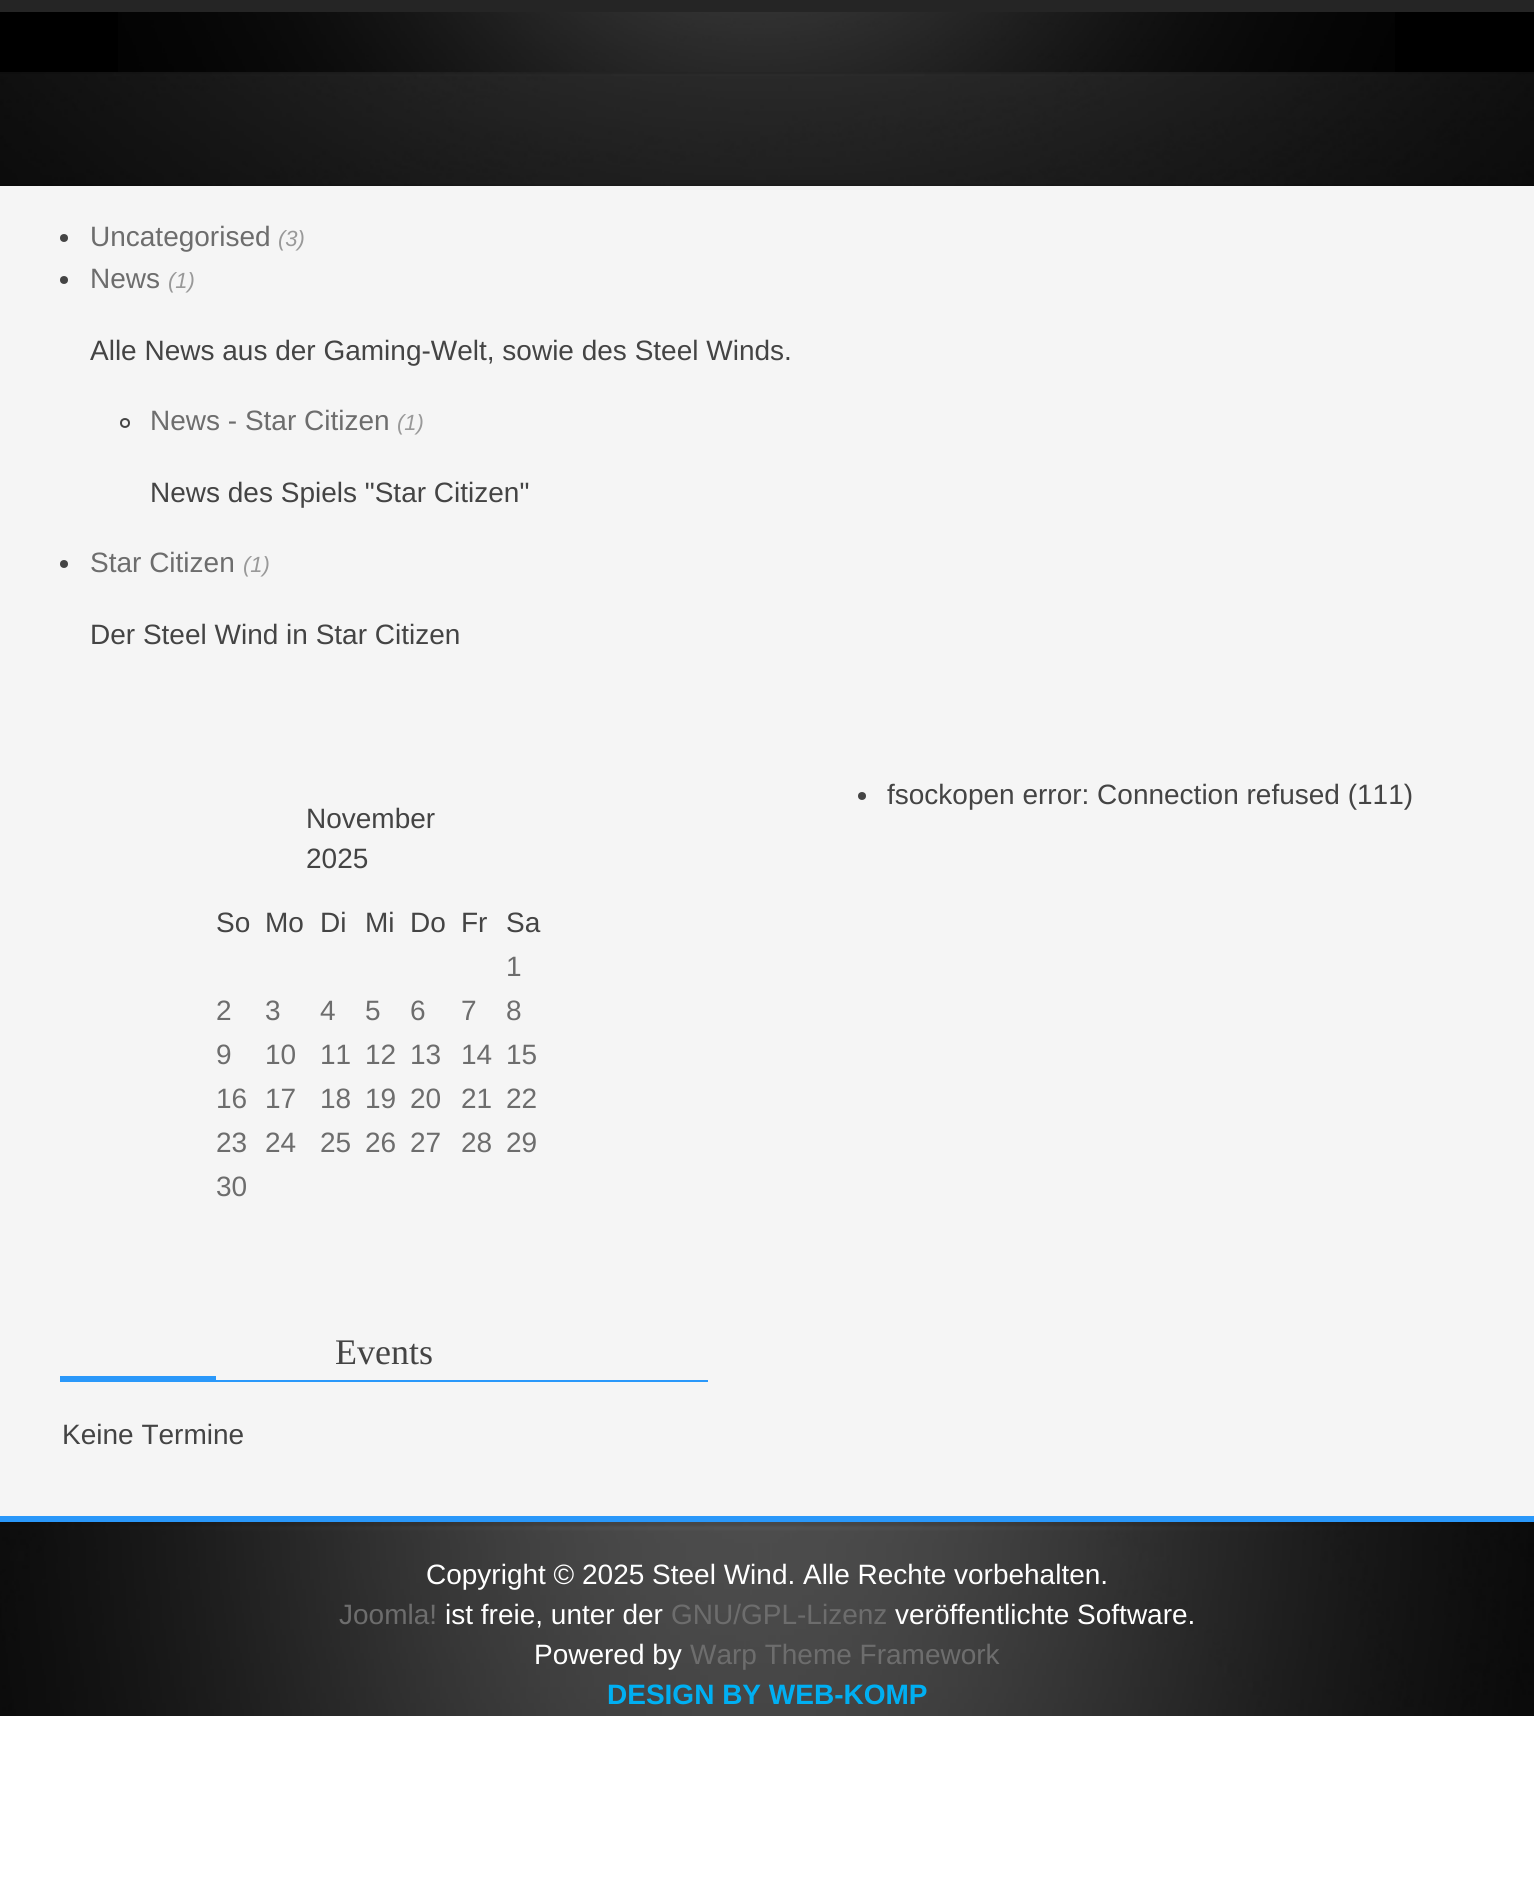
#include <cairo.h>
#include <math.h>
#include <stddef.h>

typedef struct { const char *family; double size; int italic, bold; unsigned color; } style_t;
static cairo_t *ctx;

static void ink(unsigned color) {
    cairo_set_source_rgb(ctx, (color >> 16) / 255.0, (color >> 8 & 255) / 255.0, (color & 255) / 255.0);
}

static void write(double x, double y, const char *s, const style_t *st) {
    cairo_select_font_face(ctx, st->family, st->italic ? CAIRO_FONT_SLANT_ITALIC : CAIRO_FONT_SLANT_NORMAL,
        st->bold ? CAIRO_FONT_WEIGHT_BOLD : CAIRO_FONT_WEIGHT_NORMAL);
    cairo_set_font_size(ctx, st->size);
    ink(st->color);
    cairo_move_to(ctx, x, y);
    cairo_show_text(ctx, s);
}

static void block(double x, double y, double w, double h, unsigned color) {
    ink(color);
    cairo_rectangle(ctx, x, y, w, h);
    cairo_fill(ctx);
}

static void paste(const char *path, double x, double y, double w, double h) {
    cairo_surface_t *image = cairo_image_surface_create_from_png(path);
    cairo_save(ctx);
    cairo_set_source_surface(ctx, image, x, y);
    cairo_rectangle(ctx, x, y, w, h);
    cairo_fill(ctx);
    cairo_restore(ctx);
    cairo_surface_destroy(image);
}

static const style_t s1 = {"Liberation Sans", 28, 0, 0, 0x6d6d6d};
static const style_t s2 = {"Liberation Sans", 22, 1, 0, 0x999999};
static const style_t s3 = {"Liberation Sans", 28, 0, 0, 0x444444};
static const style_t s4 = {"Liberation Serif", 36, 0, 0, 0x444444};
static const style_t s5 = {"Liberation Sans", 28, 0, 0, 0xffffff};
static const style_t s6 = {"Liberation Sans", 28, 0, 1, 0x00aff2};

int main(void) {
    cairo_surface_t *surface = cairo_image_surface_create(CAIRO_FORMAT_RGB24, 1534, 1892);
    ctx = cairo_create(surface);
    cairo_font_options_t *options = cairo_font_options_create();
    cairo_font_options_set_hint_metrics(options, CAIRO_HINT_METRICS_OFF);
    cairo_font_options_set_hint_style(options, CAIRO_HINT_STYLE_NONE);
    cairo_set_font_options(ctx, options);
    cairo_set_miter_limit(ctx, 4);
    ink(0xffffff);
    cairo_paint(ctx);
    block(0, 0, 1534, 12, 0x252525);
    block(0, 12, 1534, 174, 0x000000);
    paste("pic1.png", 118, 12, 1277, 60);
    paste("pic2.png", 0, 72, 1534, 114);
    block(0, 186, 1534, 1330, 0xf5f5f5);
    ink(0x444444);
    cairo_arc(ctx, 64, 238, 4, 0, 2 * M_PI);
    cairo_fill(ctx);
    write(90, 246, "Uncategorised", &s1);
    write(278, 246, "(3)", &s2);
    ink(0x444444);
    cairo_new_path(ctx);
    cairo_arc(ctx, 64, 280, 4, 0, 2 * M_PI);
    cairo_fill(ctx);
    write(90, 288, "News", &s1);
    write(168, 288, "(1)", &s2);
    write(90, 360, "Alle News aus der Gaming-Welt, sowie des Steel Winds.", &s3);
    cairo_new_path(ctx);
    cairo_arc(ctx, 125, 423, 4, 0, 2 * M_PI);
    cairo_stroke(ctx);
    write(150, 430, "News - Star Citizen", &s1);
    write(397, 430, "(1)", &s2);
    write(150, 502, "News des Spiels \"Star Citizen\"", &s3);
    cairo_new_path(ctx);
    cairo_arc(ctx, 64, 564, 4, 0, 2 * M_PI);
    cairo_fill(ctx);
    write(90, 572, "Star Citizen", &s1);
    write(243, 572, "(1)", &s2);
    write(90, 644, "Der Steel Wind in Star Citizen", &s3);
    cairo_new_path(ctx);
    cairo_arc(ctx, 862, 796, 4, 0, 2 * M_PI);
    cairo_fill(ctx);
    write(887, 804, "fsockopen error: Connection refused (111)", &s3);
    write(306, 828, "November", &s3);
    write(306, 868, "2025", &s3);
    write(216, 932, "So", &s3);
    write(265, 932, "Mo", &s3);
    write(320, 932, "Di", &s3);
    write(365, 932, "Mi", &s3);
    write(410, 932, "Do", &s3);
    write(461, 932, "Fr", &s3);
    write(506, 932, "Sa", &s3);
    write(506, 976, "1", &s1);
    write(216, 1020, "2", &s1);
    write(265, 1020, "3", &s1);
    write(320, 1020, "4", &s1);
    write(365, 1020, "5", &s1);
    write(410, 1020, "6", &s1);
    write(461, 1020, "7", &s1);
    write(506, 1020, "8", &s1);
    write(216, 1064, "9", &s1);
    write(265, 1064, "10", &s1);
    write(320, 1064, "11", &s1);
    write(365, 1064, "12", &s1);
    write(410, 1064, "13", &s1);
    write(461, 1064, "14", &s1);
    write(506, 1064, "15", &s1);
    write(216, 1108, "16", &s1);
    write(265, 1108, "17", &s1);
    write(320, 1108, "18", &s1);
    write(365, 1108, "19", &s1);
    write(410, 1108, "20", &s1);
    write(461, 1108, "21", &s1);
    write(506, 1108, "22", &s1);
    write(216, 1152, "23", &s1);
    write(265, 1152, "24", &s1);
    write(320, 1152, "25", &s1);
    write(365, 1152, "26", &s1);
    write(410, 1152, "27", &s1);
    write(461, 1152, "28", &s1);
    write(506, 1152, "29", &s1);
    write(216, 1196, "30", &s1);
    block(60, 1380, 648, 2, 0x2a98fa);
    write(335, 1364, "Events", &s4);
    block(60, 1376, 156, 4, 0x2a98fa);
    write(62, 1444, "Keine Termine", &s3);
    block(0, 1516, 1534, 6, 0x2a98fa);
    block(0, 1522, 1534, 194, 0x000000);
    paste("pic3.png", 0, 1522, 1534, 194);
    write(426, 1584, "Copyright © 2025 Steel Wind. Alle Rechte vorbehalten.", &s5);
    write(339, 1624, "Joomla!", &s1);
    write(445, 1624, "ist freie, unter der", &s5);
    write(671, 1624, "GNU/GPL-Lizenz", &s1);
    write(895, 1624, "veröffentlichte Software.", &s5);
    write(534, 1664, "Powered by", &s5);
    write(690, 1664, "Warp Theme Framework", &s1);
    write(607, 1704, "DESIGN BY WEB-KOMP", &s6);
    cairo_surface_write_to_png(surface, "screenshot.png");
    cairo_font_options_destroy(options);
    cairo_destroy(ctx);
    cairo_surface_destroy(surface);
    return 0;
}
